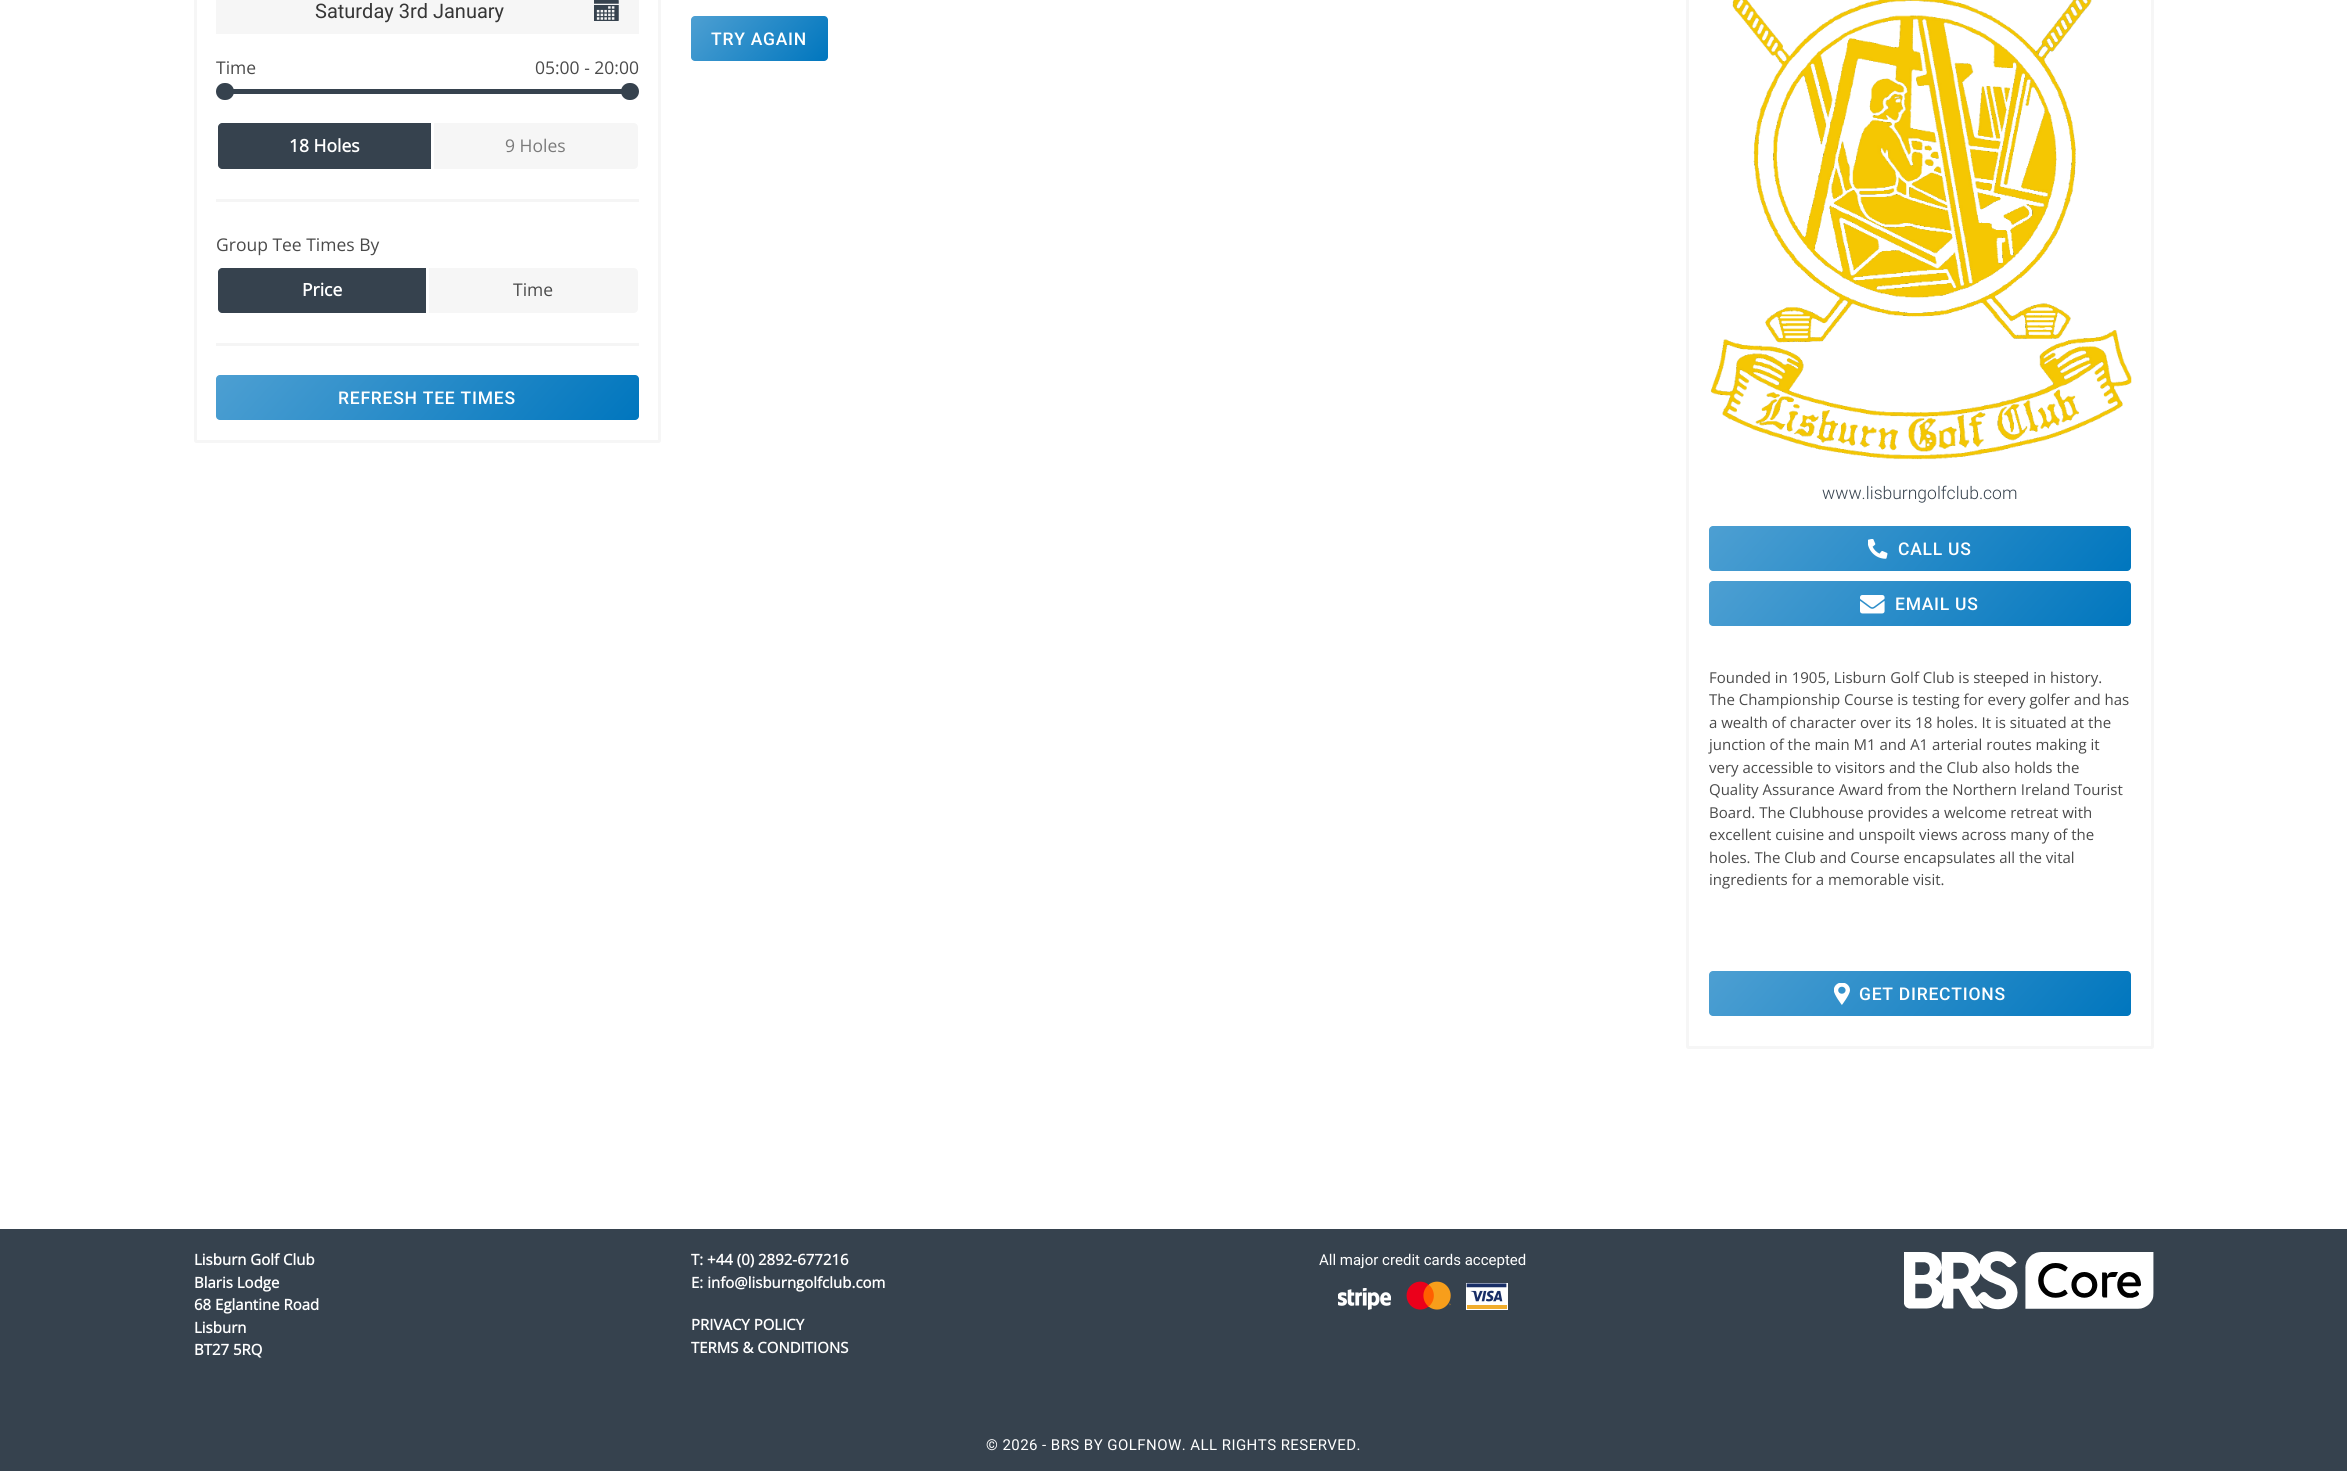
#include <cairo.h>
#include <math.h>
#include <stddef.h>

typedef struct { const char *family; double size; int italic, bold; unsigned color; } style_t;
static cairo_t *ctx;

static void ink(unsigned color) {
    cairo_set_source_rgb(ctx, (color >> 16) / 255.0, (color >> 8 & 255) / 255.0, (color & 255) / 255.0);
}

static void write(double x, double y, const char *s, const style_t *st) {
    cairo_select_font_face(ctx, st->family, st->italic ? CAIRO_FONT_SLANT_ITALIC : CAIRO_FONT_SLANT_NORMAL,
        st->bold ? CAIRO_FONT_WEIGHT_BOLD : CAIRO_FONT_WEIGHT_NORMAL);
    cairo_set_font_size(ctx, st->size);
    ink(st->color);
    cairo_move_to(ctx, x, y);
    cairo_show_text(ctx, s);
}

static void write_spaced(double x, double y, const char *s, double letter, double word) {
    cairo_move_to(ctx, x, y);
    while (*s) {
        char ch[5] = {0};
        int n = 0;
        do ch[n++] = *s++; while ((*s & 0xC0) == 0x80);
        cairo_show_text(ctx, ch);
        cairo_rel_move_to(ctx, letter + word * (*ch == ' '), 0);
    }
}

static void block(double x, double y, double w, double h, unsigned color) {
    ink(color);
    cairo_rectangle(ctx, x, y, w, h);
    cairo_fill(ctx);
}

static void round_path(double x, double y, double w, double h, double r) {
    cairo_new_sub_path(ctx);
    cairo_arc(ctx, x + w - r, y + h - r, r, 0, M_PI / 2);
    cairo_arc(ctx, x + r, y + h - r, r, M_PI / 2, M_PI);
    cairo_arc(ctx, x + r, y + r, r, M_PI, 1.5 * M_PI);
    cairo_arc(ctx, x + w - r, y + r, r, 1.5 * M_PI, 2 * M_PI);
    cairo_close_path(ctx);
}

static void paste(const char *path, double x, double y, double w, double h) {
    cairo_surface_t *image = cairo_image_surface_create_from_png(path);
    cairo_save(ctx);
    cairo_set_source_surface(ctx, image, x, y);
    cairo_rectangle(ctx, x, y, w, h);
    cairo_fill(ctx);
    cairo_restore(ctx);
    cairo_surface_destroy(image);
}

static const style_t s1 = {"Roboto", 20, 0, 0, 0x363636};
static const style_t s2 = {"Open Sans", 17.5, 0, 0, 0x4a4a4a};
static const style_t s3 = {"Open Sans", 17.5, 0, 1, 0xffffff};
static const style_t s4 = {"Open Sans", 17.5, 0, 0, 0x7a7a7a};
static const style_t s5 = {"Roboto Light", 17.5, 0, 0, 0x36424e};
static const style_t s6 = {"Open Sans", 15, 0, 0, 0x4a4a4a};
static const style_t s7 = {"Open Sans", 15, 0, 1, 0xffffff};
static const style_t s8 = {"Roboto", 15, 0, 0, 0xffffff};

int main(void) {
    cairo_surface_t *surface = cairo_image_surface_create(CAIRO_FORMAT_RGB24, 2347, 1471);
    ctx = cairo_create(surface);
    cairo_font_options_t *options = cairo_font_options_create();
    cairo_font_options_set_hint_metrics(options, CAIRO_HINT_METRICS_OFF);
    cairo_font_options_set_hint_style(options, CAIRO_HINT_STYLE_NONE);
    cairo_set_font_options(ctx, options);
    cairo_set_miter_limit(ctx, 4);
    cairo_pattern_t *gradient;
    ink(0xffffff);
    cairo_paint(ctx);
    round_path(195.5, -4.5, 464, 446, 1);
    ink(0xf6f6f6);
    cairo_set_line_width(ctx, 3);
    cairo_stroke(ctx);
    block(216, 0, 423, 34, 0xf6f6f6);
    write(315, 18, "Saturday 3rd January", &s1);
    paste("pic1.png", 594, 0, 25, 21);
    write(216, 74, "Time", &s2);
    write(535, 74, "05:00 - 20:00", &s2);
    block(225, 89, 405, 5, 0x36424e);
    round_path(216, 83, 18, 17, 8.5);
    cairo_fill(ctx);
    round_path(621, 83, 18, 17, 8.5);
    cairo_fill(ctx);
    cairo_new_path(ctx);
    cairo_move_to(ctx, 222, 123);
    cairo_line_to(ctx, 431, 123);
    cairo_line_to(ctx, 431, 169);
    cairo_line_to(ctx, 222, 169);
    cairo_curve_to(ctx, 220, 169, 218, 167, 218, 165);
    cairo_line_to(ctx, 218, 127);
    cairo_curve_to(ctx, 218, 125, 220, 123, 222, 123);
    cairo_close_path(ctx);
    cairo_fill(ctx);
    write(289, 152, "18 Holes", &s3);
    ink(0xf6f6f6);
    cairo_new_path(ctx);
    cairo_move_to(ctx, 434, 123);
    cairo_line_to(ctx, 634, 123);
    cairo_curve_to(ctx, 636, 123, 638, 125, 638, 127);
    cairo_line_to(ctx, 638, 165);
    cairo_curve_to(ctx, 638, 167, 636, 169, 634, 169);
    cairo_line_to(ctx, 434, 169);
    cairo_close_path(ctx);
    cairo_fill(ctx);
    write(505, 152, "9 Holes", &s4);
    block(216, 199, 423, 3, 0xf5f5f5);
    write(216, 251, "Group Tee Times By", &s2);
    ink(0x36424e);
    cairo_new_path(ctx);
    cairo_move_to(ctx, 222, 268);
    cairo_line_to(ctx, 426, 268);
    cairo_line_to(ctx, 426, 313);
    cairo_line_to(ctx, 222, 313);
    cairo_curve_to(ctx, 220, 313, 218, 311, 218, 309);
    cairo_line_to(ctx, 218, 272);
    cairo_curve_to(ctx, 218, 270, 220, 268, 222, 268);
    cairo_close_path(ctx);
    cairo_fill(ctx);
    write(302, 296, "Price", &s3);
    ink(0xf6f6f6);
    cairo_new_path(ctx);
    cairo_move_to(ctx, 429, 268);
    cairo_line_to(ctx, 634, 268);
    cairo_curve_to(ctx, 636, 268, 638, 270, 638, 272);
    cairo_line_to(ctx, 638, 309);
    cairo_curve_to(ctx, 638, 311, 636, 313, 634, 313);
    cairo_line_to(ctx, 429, 313);
    cairo_close_path(ctx);
    cairo_fill(ctx);
    write(513, 296, "Time", &s2);
    block(216, 343, 423, 3, 0xf5f5f5);
    gradient = cairo_pattern_create_linear(300, 282, 555, 513);
    cairo_pattern_add_color_stop_rgba(gradient, 0, 0.302, 0.624, 0.824, 1);
    cairo_pattern_add_color_stop_rgba(gradient, 1, 0, 0.463, 0.745, 1);
    cairo_set_source(ctx, gradient);
    cairo_pattern_destroy(gradient);
    round_path(216, 375, 423, 45, 4);
    cairo_fill(ctx);
    cairo_select_font_face(ctx, "Roboto Medium", CAIRO_FONT_SLANT_NORMAL, CAIRO_FONT_WEIGHT_NORMAL);
    ink(0xffffff);
    write_spaced(338, 404, "REFRESH TEE TIMES", 0.75, 0);
    gradient = cairo_pattern_create_linear(711, -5.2, 808, 83);
    cairo_pattern_add_color_stop_rgba(gradient, 0, 0.302, 0.624, 0.824, 1);
    cairo_pattern_add_color_stop_rgba(gradient, 1, 0, 0.463, 0.745, 1);
    cairo_set_source(ctx, gradient);
    cairo_pattern_destroy(gradient);
    round_path(691, 16, 137, 45, 4);
    cairo_fill(ctx);
    ink(0xffffff);
    write_spaced(711, 45, "TRY AGAIN", 0.75, 0);
    round_path(1687.5, -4.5, 465, 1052, 1);
    ink(0xf6f6f6);
    cairo_stroke(ctx);
    paste("pic2.png", 1710, 0, 422, 460);
    write(1822, 499, "www.lisburngolfclub.com", &s5);
    gradient = cairo_pattern_create_linear(1792, 434, 2048, 664);
    cairo_pattern_add_color_stop_rgba(gradient, 0, 0.302, 0.624, 0.824, 1);
    cairo_pattern_add_color_stop_rgba(gradient, 1, 0, 0.463, 0.745, 1);
    cairo_set_source(ctx, gradient);
    cairo_pattern_destroy(gradient);
    round_path(1709, 526, 422, 45, 4);
    cairo_fill(ctx);
    paste("pic3.png", 1868, 539, 20, 20);
    cairo_select_font_face(ctx, "Roboto Medium", CAIRO_FONT_SLANT_NORMAL, CAIRO_FONT_WEIGHT_NORMAL);
    ink(0xffffff);
    write_spaced(1898, 555, "CALL US", 0.75, 0);
    gradient = cairo_pattern_create_linear(1792, 489, 2048, 719);
    cairo_pattern_add_color_stop_rgba(gradient, 0, 0.302, 0.624, 0.824, 1);
    cairo_pattern_add_color_stop_rgba(gradient, 1, 0, 0.463, 0.745, 1);
    cairo_set_source(ctx, gradient);
    cairo_pattern_destroy(gradient);
    round_path(1709, 581, 422, 45, 4);
    cairo_fill(ctx);
    paste("pic4.png", 1860, 595, 25, 19);
    ink(0xffffff);
    write_spaced(1895, 610, "EMAIL US", 0.75, 0);
    write(1709, 683, "Founded in 1905, Lisburn Golf Club is steeped in history.", &s6);
    write(1709, 705, "The Championship Course is testing for every golfer and has", &s6);
    write(1709, 728, "a wealth of character over its 18 holes. It is situated at the", &s6);
    write(1709, 750, "junction of the main M1 and A1 arterial routes making it", &s6);
    write(1709, 773, "very accessible to visitors and the Club also holds the", &s6);
    write(1709, 795, "Quality Assurance Award from the Northern Ireland Tourist", &s6);
    write(1709, 818, "Board. The Clubhouse provides a welcome retreat with", &s6);
    write(1709, 840, "excellent cuisine and unspoilt views across many of the", &s6);
    write(1709, 863, "holes. The Club and Course encapsulates all the vital", &s6);
    write(1709, 885, "ingredients for a memorable visit.", &s6);
    gradient = cairo_pattern_create_linear(1792, 879, 2048, 1109);
    cairo_pattern_add_color_stop_rgba(gradient, 0, 0.302, 0.624, 0.824, 1);
    cairo_pattern_add_color_stop_rgba(gradient, 1, 0, 0.463, 0.745, 1);
    cairo_set_source(ctx, gradient);
    cairo_pattern_destroy(gradient);
    round_path(1709, 971, 422, 45, 4);
    cairo_fill(ctx);
    paste("pic5.png", 1834, 983, 16, 22);
    cairo_select_font_face(ctx, "Roboto Medium", CAIRO_FONT_SLANT_NORMAL, CAIRO_FONT_WEIGHT_NORMAL);
    cairo_set_font_size(ctx, 17.5);
    ink(0xffffff);
    write_spaced(1859, 1000, "GET DIRECTIONS", 0.75, 0);
    block(0, 1229, 2347, 242, 0x36424e);
    write(194, 1265, "Lisburn Golf Club", &s7);
    write(194, 1288, "Blaris Lodge", &s7);
    write(194, 1310, "68 Eglantine Road", &s7);
    write(194, 1333, "Lisburn", &s7);
    write(194, 1355, "BT27 5RQ", &s7);
    write(691, 1265, "T: +44 (0) 2892-677216", &s7);
    write(691, 1288, "E: info@lisburngolfclub.com", &s7);
    write(691, 1330, "PRIVACY POLICY", &s7);
    write(691, 1353, "TERMS & CONDITIONS", &s7);
    write(1319, 1265, "All major credit cards accepted", &s8);
    paste("pic6.png", 1338, 1288, 53, 22);
    paste("pic7.png", 1406, 1281, 45, 29);
    paste("pic8.png", 1466, 1283, 42, 27);
    paste("pic9.png", 1904, 1251, 250, 59);
    write_spaced(986, 1450, "© 2026 - BRS BY GOLFNOW. ALL RIGHTS RESERVED.", 0.45, 0);
    cairo_surface_write_to_png(surface, "screenshot.png");
    cairo_font_options_destroy(options);
    cairo_destroy(ctx);
    cairo_surface_destroy(surface);
    return 0;
}
